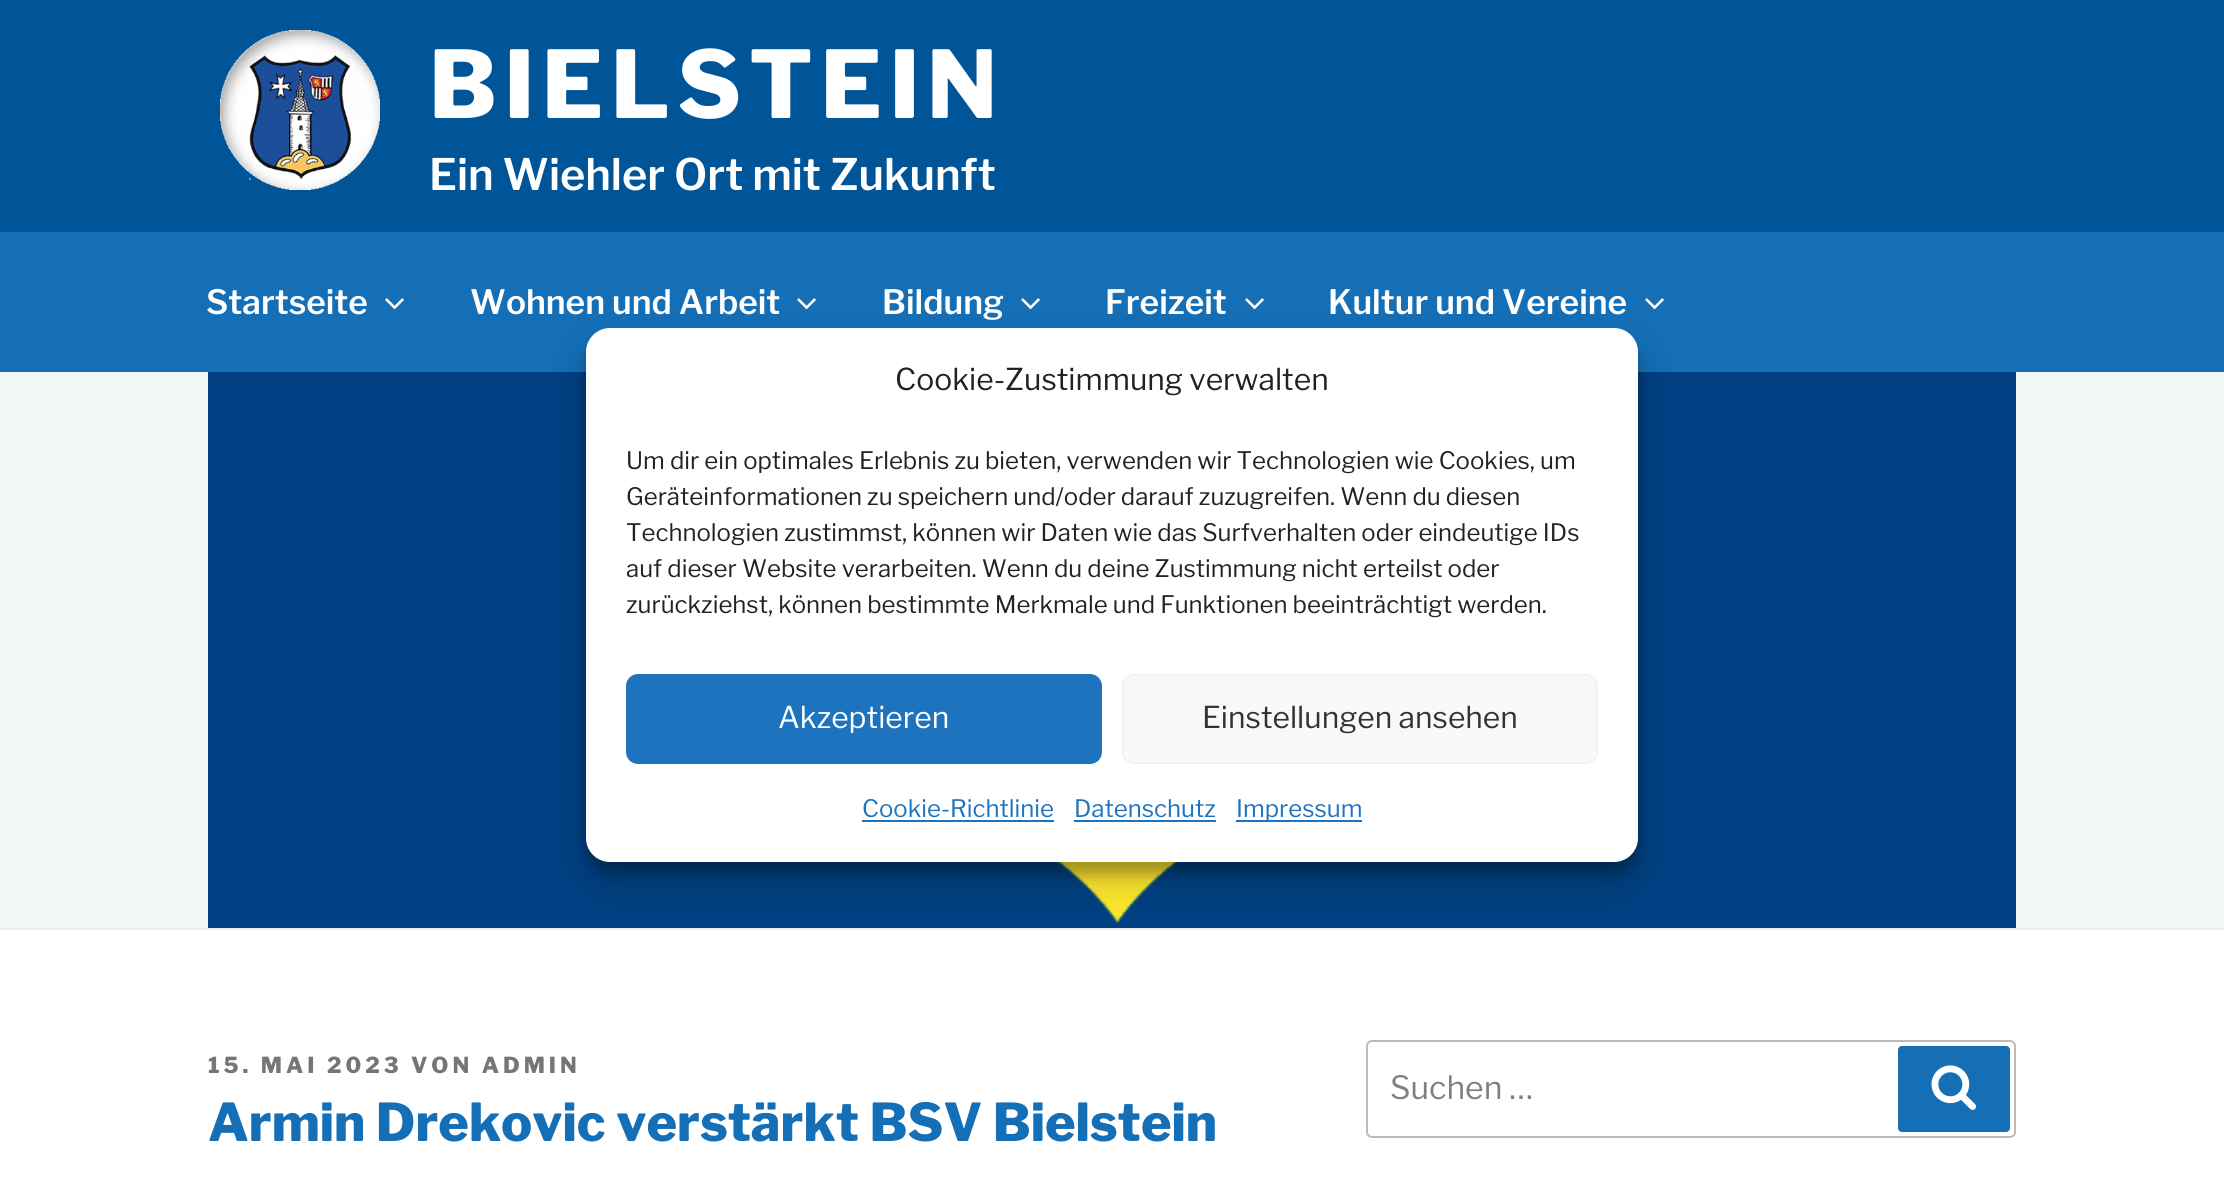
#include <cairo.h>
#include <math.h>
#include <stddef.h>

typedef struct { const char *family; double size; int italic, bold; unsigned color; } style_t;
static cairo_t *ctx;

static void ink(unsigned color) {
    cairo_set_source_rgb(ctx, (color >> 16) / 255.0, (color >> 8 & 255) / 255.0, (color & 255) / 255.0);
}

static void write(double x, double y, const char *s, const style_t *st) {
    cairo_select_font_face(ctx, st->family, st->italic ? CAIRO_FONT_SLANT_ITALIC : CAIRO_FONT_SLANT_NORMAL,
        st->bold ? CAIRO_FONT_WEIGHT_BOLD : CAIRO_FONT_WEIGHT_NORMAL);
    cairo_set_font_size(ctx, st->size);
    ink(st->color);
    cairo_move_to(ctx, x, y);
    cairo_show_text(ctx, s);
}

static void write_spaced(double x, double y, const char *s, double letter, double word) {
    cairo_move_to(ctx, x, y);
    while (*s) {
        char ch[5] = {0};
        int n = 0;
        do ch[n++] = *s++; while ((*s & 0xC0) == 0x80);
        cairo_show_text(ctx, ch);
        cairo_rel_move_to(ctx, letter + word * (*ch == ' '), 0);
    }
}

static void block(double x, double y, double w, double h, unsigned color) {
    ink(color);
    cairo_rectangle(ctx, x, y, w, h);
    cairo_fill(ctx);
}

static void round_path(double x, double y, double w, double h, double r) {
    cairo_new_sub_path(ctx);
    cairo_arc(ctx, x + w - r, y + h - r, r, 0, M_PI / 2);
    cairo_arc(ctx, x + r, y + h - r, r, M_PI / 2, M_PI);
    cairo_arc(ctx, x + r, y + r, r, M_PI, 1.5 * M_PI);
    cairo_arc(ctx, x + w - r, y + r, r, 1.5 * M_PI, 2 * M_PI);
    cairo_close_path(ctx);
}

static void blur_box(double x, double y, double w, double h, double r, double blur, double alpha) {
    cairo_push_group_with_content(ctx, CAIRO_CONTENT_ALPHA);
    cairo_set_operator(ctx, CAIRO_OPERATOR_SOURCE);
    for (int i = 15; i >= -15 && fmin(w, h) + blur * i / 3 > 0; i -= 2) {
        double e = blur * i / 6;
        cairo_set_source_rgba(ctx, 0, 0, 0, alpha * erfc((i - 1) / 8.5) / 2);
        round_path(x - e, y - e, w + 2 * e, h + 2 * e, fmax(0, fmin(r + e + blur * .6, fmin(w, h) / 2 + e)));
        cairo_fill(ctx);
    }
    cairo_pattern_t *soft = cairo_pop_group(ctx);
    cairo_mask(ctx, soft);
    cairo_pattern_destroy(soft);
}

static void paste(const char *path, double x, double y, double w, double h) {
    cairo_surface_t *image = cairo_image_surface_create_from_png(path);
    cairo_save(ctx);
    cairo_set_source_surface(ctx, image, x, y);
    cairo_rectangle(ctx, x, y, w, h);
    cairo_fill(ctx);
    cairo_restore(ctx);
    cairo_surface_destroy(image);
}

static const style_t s1 = {"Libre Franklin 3 Thin", 43.25, 0, 0, 0xffffff};
static const style_t s2 = {"Libre Franklin 3 Thin", 33.5, 0, 0, 0xffffff};
static const style_t s3 = {"Libre Franklin Thin", 52, 0, 0, 0x146fb6};
static const style_t s4 = {"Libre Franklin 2 Thin", 32, 0, 0, 0x808080};
static const style_t s5 = {"Libre Franklin 2 Thin", 30, 0, 0, 0x222222};
static const style_t s6 = {"Libre Franklin 2 Thin", 24, 0, 0, 0x222222};
static const style_t s7 = {"Libre Franklin 2 Thin", 30, 0, 0, 0xffffff};
static const style_t s8 = {"Libre Franklin 2 Thin", 30, 0, 0, 0x333333};
static const style_t s9 = {"Libre Franklin 2 Thin", 24, 0, 0, 0x1e73be};

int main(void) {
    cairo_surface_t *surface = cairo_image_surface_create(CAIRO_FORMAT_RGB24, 2224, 1187);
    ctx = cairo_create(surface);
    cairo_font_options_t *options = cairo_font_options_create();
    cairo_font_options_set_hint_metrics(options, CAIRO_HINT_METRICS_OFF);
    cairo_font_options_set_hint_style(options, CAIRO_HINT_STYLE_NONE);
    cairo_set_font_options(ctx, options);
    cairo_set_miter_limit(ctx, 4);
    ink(0xffffff);
    cairo_paint(ctx);
    block(0, 0, 2224, 232, 0x005599);
    paste("pic1.png", 220, 30, 160, 160);
    cairo_select_font_face(ctx, "Libre Franklin Thin", CAIRO_FONT_SLANT_NORMAL, CAIRO_FONT_WEIGHT_NORMAL);
    cairo_set_font_size(ctx, 92.75);
    ink(0xffffff);
    write_spaced(429, 118, "BIELSTEIN", 7.5, 0);
    write(429, 190, "Ein Wiehler Ort mit Zukunft", &s1);
    block(0, 232, 2224, 140, 0x146fb6);
    write(206, 314, "Startseite", &s2);
    paste("pic2.png", 385, 298, 19, 12);
    write(470, 314, "Wohnen und Arbeit", &s2);
    paste("pic2.png", 797, 298, 19, 12);
    write(882, 314, "Bildung", &s2);
    paste("pic2.png", 1021, 298, 19, 12);
    write(1105, 314, "Freizeit", &s2);
    paste("pic2.png", 1245, 298, 19, 12);
    write(1328, 314, "Kultur und Vereine", &s2);
    paste("pic2.png", 1645, 298, 19, 12);
    block(0, 372, 2224, 556, 0xf1f6f6);
    block(0, 928, 2224, 2, 0xeeeeee);
    paste("pic3.png", 208, 372, 1808, 556);
    cairo_select_font_face(ctx, "Libre Franklin Thin", CAIRO_FONT_SLANT_NORMAL, CAIRO_FONT_WEIGHT_NORMAL);
    cairo_set_font_size(ctx, 22);
    ink(0x767676);
    write_spaced(208, 1073, "15. MAI 2023 VON ADMIN", 4, 0);
    write(208, 1141, "Armin Drekovic verstärkt BSV Bielstein", &s3);
    round_path(1367, 1041, 648, 96, 5);
    ink(0xbbbbbb);
    cairo_stroke(ctx);
    write(1390, 1099, "Suchen …", &s4);
    ink(0x146fb6);
    round_path(1898, 1046, 112, 86, 4);
    cairo_fill(ctx);
    paste("pic4.png", 1931, 1065, 46, 45);
    ink(0x000000);
    blur_box(586, 340, 1052, 534, 24, 6, 0.23);
    blur_box(586, 348, 1052, 534, 24, 20, 0.19);
    ink(0xffffff);
    round_path(586, 328, 1052, 534, 24);
    cairo_fill(ctx);
    write(895, 390, "Cookie-Zustimmung verwalten", &s5);
    write(626, 469, "Um dir ein optimales Erlebnis zu bieten, verwenden wir Technologien wie Cookies, um", &s6);
    write(626, 505, "Geräteinformationen zu speichern und/oder darauf zuzugreifen. Wenn du diesen", &s6);
    write(626, 541, "Technologien zustimmst, können wir Daten wie das Surfverhalten oder eindeutige IDs", &s6);
    write(626, 577, "auf dieser Website verarbeiten. Wenn du deine Zustimmung nicht erteilst oder", &s6);
    write(626, 613, "zurückziehst, können bestimmte Merkmale und Funktionen beeinträchtigt werden.", &s6);
    ink(0x1e73be);
    round_path(627, 675, 474, 88, 11);
    cairo_fill_preserve(ctx);
    cairo_stroke(ctx);
    write(778, 728, "Akzeptieren", &s7);
    ink(0xf9f9f9);
    round_path(1123, 675, 474, 88, 11);
    cairo_fill_preserve(ctx);
    ink(0xf2f2f2);
    cairo_stroke(ctx);
    write(1202, 728, "Einstellungen ansehen", &s8);
    write(862, 817, "Cookie-Richtlinie", &s9);
    block(862, 820, 192, 2, 0x1e73be);
    write(1074, 817, "Datenschutz", &s9);
    block(1074, 820, 142, 2, 0x1e73be);
    block(1236, 820, 126, 2, 0x1e73be);
    write(1236, 817, "Impressum", &s9);
    cairo_surface_write_to_png(surface, "screenshot.png");
    cairo_font_options_destroy(options);
    cairo_destroy(ctx);
    cairo_surface_destroy(surface);
    return 0;
}
